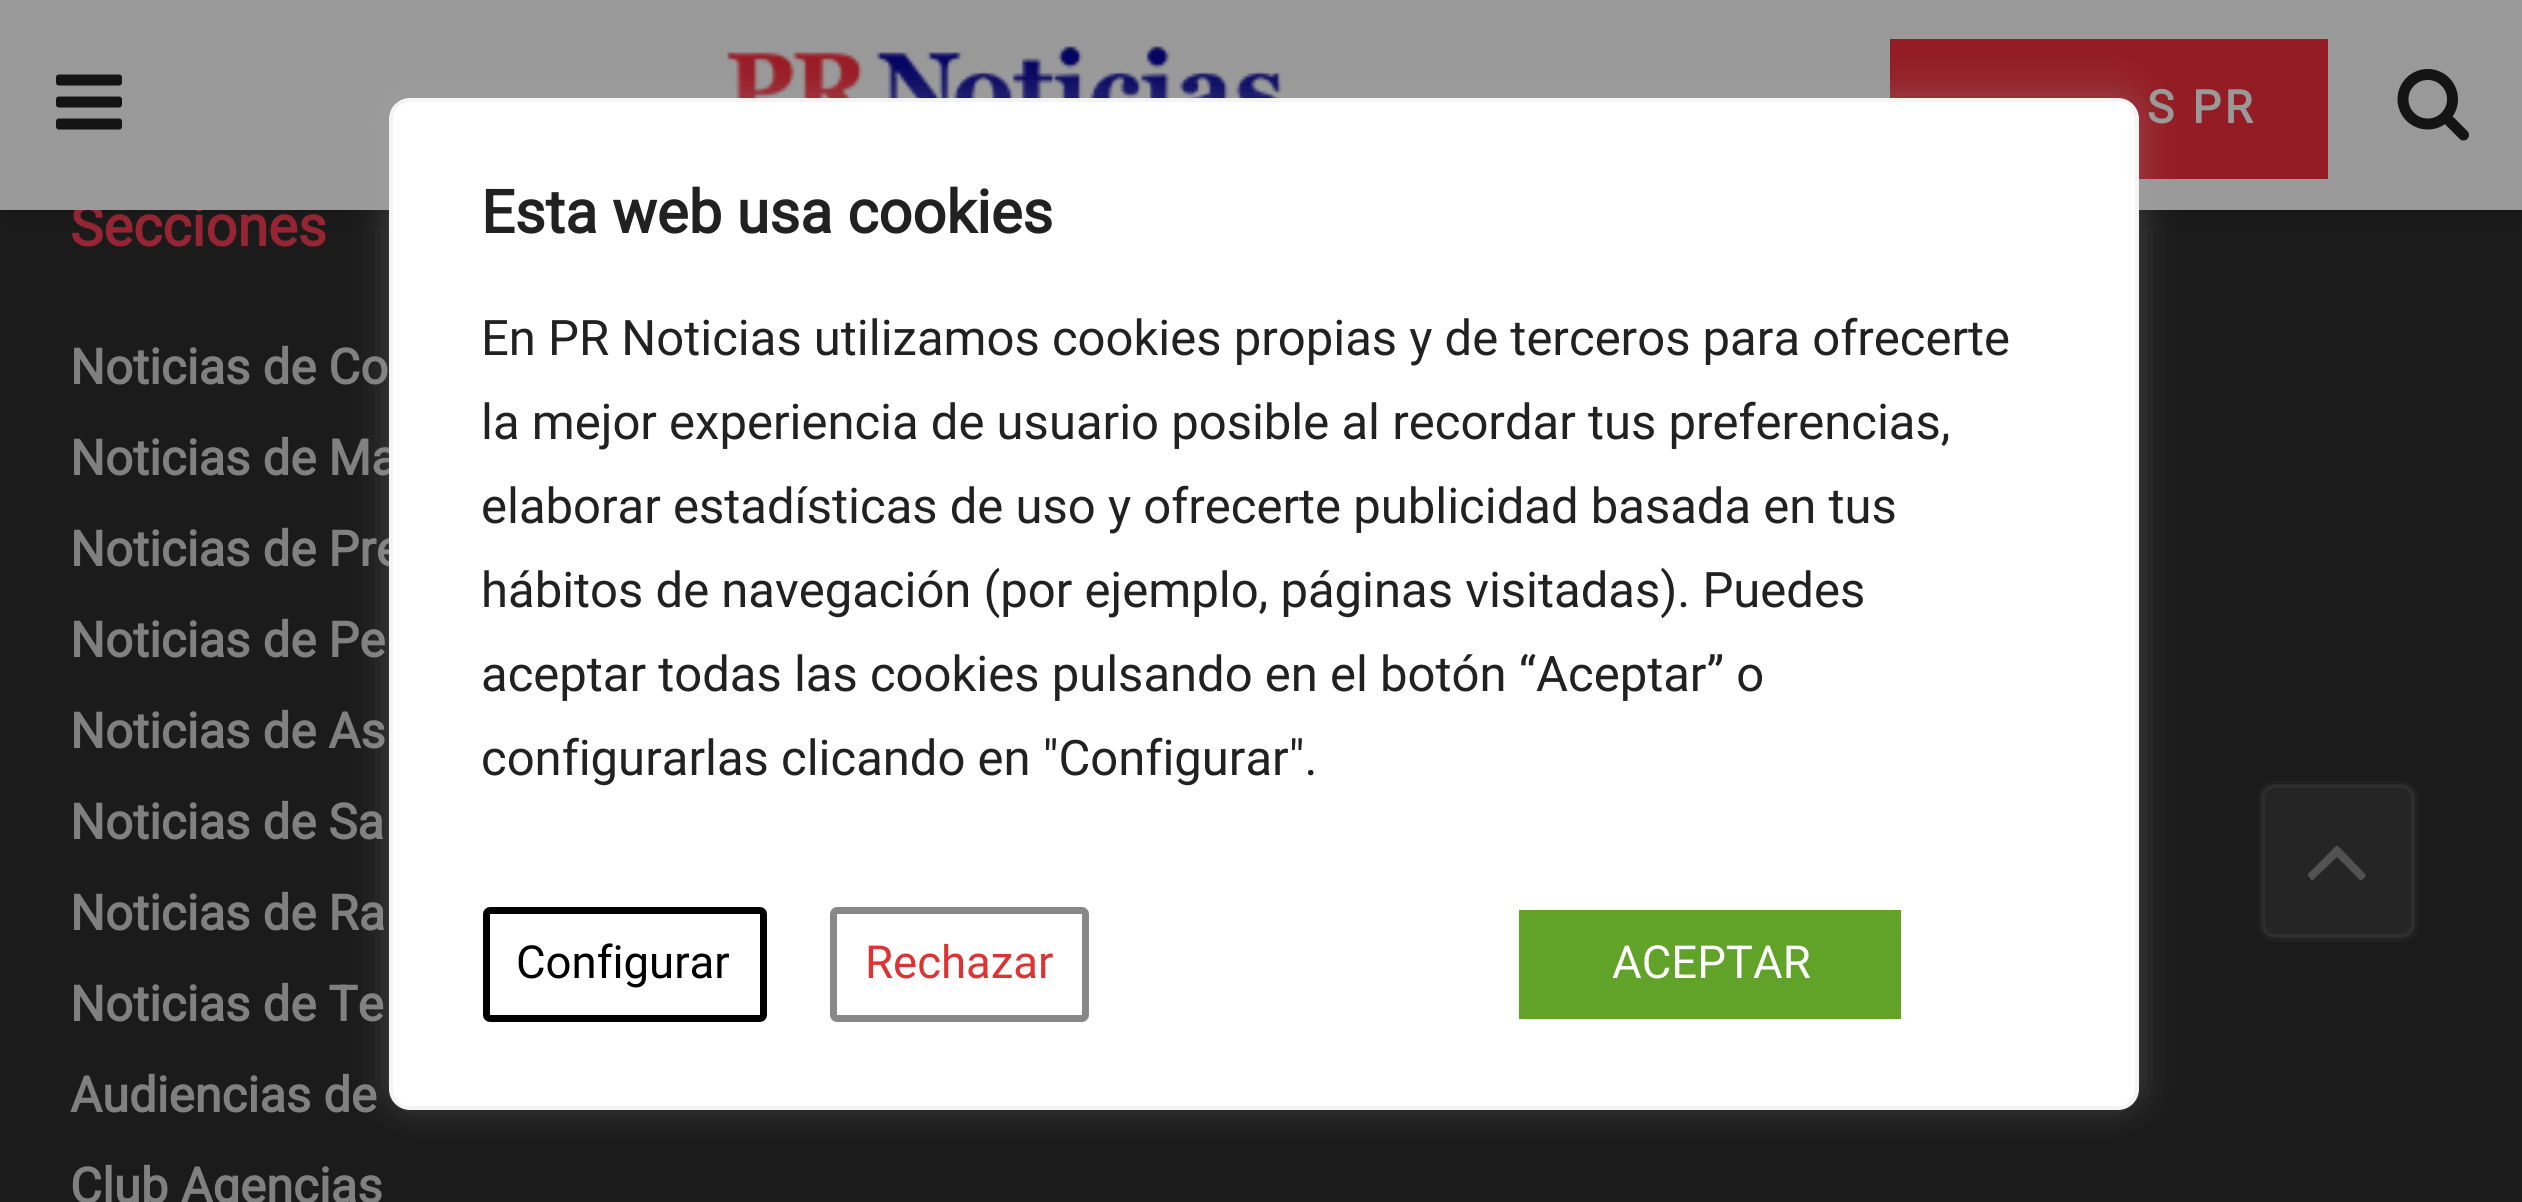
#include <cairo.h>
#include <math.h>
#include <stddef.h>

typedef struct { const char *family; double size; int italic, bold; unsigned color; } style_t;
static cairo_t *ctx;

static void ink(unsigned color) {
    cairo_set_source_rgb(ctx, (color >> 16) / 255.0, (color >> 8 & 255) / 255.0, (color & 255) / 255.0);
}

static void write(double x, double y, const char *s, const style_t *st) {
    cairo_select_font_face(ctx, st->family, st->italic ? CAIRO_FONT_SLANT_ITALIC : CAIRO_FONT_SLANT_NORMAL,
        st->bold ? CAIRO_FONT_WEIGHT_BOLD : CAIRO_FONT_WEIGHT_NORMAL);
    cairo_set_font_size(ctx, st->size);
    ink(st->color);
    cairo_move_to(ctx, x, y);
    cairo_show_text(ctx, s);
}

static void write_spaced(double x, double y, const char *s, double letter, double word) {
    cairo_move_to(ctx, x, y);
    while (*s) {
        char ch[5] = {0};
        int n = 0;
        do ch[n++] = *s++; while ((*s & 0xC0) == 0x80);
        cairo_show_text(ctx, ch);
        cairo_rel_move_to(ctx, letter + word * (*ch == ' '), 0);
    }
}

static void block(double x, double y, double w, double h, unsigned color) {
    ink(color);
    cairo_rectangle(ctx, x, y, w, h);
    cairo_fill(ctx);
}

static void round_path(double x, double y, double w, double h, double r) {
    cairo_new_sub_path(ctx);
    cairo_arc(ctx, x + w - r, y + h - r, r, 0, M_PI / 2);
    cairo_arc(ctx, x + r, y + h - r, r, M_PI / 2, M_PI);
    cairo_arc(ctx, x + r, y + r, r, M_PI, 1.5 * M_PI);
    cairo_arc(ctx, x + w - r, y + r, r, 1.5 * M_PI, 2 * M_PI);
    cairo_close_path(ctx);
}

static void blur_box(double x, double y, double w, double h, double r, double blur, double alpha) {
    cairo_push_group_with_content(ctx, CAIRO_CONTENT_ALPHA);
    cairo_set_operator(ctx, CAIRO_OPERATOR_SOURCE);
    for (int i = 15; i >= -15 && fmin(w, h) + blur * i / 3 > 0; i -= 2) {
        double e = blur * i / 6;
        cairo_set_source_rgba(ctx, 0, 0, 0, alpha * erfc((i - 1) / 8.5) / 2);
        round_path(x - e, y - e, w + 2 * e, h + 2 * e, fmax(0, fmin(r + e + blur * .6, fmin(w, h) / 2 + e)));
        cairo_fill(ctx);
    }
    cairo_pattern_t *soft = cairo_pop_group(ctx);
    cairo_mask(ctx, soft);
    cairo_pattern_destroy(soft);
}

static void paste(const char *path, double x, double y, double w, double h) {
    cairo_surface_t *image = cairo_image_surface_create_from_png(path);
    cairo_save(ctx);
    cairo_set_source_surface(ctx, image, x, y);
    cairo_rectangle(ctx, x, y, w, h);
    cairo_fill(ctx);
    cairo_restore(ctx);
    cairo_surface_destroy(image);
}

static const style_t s1 = {"Roboto", 56, 0, 1, 0x952532};
static const style_t s2 = {"Roboto", 49, 0, 1, 0x808080};
static const style_t s3 = {"Roboto", 59.5, 0, 1, 0x212121};
static const style_t s4 = {"Roboto", 49, 0, 0, 0x212121};
static const style_t s5 = {"Roboto", 45.5, 0, 0, 0x000000};
static const style_t s6 = {"Roboto", 45.5, 0, 0, 0xdd3333};
static const style_t s7 = {"Roboto", 45.5, 0, 0, 0xffffff};

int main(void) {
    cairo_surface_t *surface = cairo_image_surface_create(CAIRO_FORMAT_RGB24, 2522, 1202);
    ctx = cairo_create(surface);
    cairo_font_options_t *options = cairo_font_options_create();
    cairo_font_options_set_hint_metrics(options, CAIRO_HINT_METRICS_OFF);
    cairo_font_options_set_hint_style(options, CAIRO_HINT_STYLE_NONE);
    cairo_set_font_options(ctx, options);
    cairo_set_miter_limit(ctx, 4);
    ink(0x1b1b1b);
    cairo_paint(ctx);
    ink(0x000000);
    blur_box(0, 7, 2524, 210, 0, 10.5, 0.1);
    write(70, 246, "Secciones", &s1);
    block(0, 0, 2522, 210, 0x999999);
    paste("pic1.png", 56, 74, 66, 56);
    paste("pic2.png", 727, 46, 555, 52);
    block(1890, 39, 438, 140, 0x941d25);
    cairo_set_font_size(ctx, 45.5);
    ink(0x999999);
    write_spaced(2147, 123, "S PR", 3.5, 0);
    paste("pic3.png", 2397, 69, 72, 72);
    write(70, 384, "Noticias de Co", &s2);
    write(70, 475, "Noticias de Ma", &s2);
    write(70, 566, "Noticias de Pre", &s2);
    write(70, 657, "Noticias de Pe", &s2);
    write(70, 748, "Noticias de As", &s2);
    write(70, 839, "Noticias de Sa", &s2);
    write(70, 930, "Noticias de Ra", &s2);
    write(70, 1021, "Noticias de Te", &s2);
    write(70, 1112, "Audiencias de", &s2);
    write(70, 1203, "Club Agencias", &s2);
    ink(0x252525);
    round_path(2258, 781, 161, 161, 18);
    cairo_fill(ctx);
    round_path(2263, 786, 150, 150, 12);
    ink(0x2e2e2e);
    cairo_set_line_width(ctx, 4);
    cairo_stroke(ctx);
    round_path(2260, 783, 157, 157, 16);
    cairo_set_source_rgba(ctx, 0.02, 0.02, 0.02, 0.11);
    cairo_stroke(ctx);
    ink(0x525252);
    cairo_new_path(ctx);
    cairo_move_to(ctx, 2365, 874);
    cairo_curve_to(ctx, 2367, 876, 2365, 877, 2364, 878);
    cairo_curve_to(ctx, 2360, 882, 2360, 880, 2356, 876);
    cairo_line_to(ctx, 2337, 857);
    cairo_line_to(ctx, 2313, 880);
    cairo_curve_to(ctx, 2312, 881, 2310, 879, 2310, 878);
    cairo_curve_to(ctx, 2306, 874, 2308, 874, 2313, 869);
    cairo_line_to(ctx, 2331, 851);
    cairo_curve_to(ctx, 2338, 844, 2336, 844, 2343, 851);
    cairo_close_path(ctx);
    cairo_fill(ctx);
    cairo_save(ctx);
    cairo_set_fill_rule(ctx, CAIRO_FILL_RULE_EVEN_ODD);
    cairo_new_path(ctx);
    cairo_move_to(ctx, 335, 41);
    cairo_line_to(ctx, 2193, 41);
    cairo_line_to(ctx, 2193, 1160);
    cairo_line_to(ctx, 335, 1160);
    cairo_close_path(ctx);
    cairo_move_to(ctx, 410, 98);
    cairo_line_to(ctx, 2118, 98);
    cairo_curve_to(ctx, 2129.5, 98, 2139, 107.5, 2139, 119);
    cairo_line_to(ctx, 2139, 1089);
    cairo_curve_to(ctx, 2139, 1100.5, 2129.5, 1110, 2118, 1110);
    cairo_line_to(ctx, 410, 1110);
    cairo_curve_to(ctx, 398.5, 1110, 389, 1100.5, 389, 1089);
    cairo_line_to(ctx, 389, 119);
    cairo_curve_to(ctx, 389, 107.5, 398.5, 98, 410, 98);
    cairo_close_path(ctx);
    cairo_clip(ctx);
    ink(0xacabab);
    blur_box(389, 95, 1750, 1011, 21, 17.5, 0.3);
    cairo_restore(ctx);
    ink(0xffffff);
    round_path(391, 100, 1746, 1008, 19);
    cairo_fill_preserve(ctx);
    ink(0xf4f4f4);
    cairo_stroke(ctx);
    write(481, 233, "Esta web usa cookies", &s3);
    write(481, 355, "En PR Noticias utilizamos cookies propias y de terceros para ofrecerte", &s4);
    write(481, 439, "la mejor experiencia de usuario posible al recordar tus preferencias,", &s4);
    write(481, 523, "elaborar estadísticas de uso y ofrecerte publicidad basada en tus", &s4);
    write(481, 607, "hábitos de navegación (por ejemplo, páginas visitadas). Puedes", &s4);
    write(481, 691, "aceptar todas las cookies pulsando en el botón “Aceptar” o", &s4);
    write(481, 775, "configurarlas clicando en \"Configurar\".", &s4);
    round_path(486.5, 910.5, 277, 108, 3.5);
    ink(0x000000);
    cairo_set_line_width(ctx, 7);
    cairo_stroke(ctx);
    write(516, 978, "Configurar", &s5);
    round_path(833.5, 910.5, 252, 108, 3.5);
    ink(0x898888);
    cairo_stroke(ctx);
    write(865, 978, "Rechazar", &s6);
    block(1519, 910, 382, 109, 0x61a229);
    write(1612, 978, "ACEPTAR", &s7);
    cairo_surface_write_to_png(surface, "screenshot.png");
    cairo_font_options_destroy(options);
    cairo_destroy(ctx);
    cairo_surface_destroy(surface);
    return 0;
}
